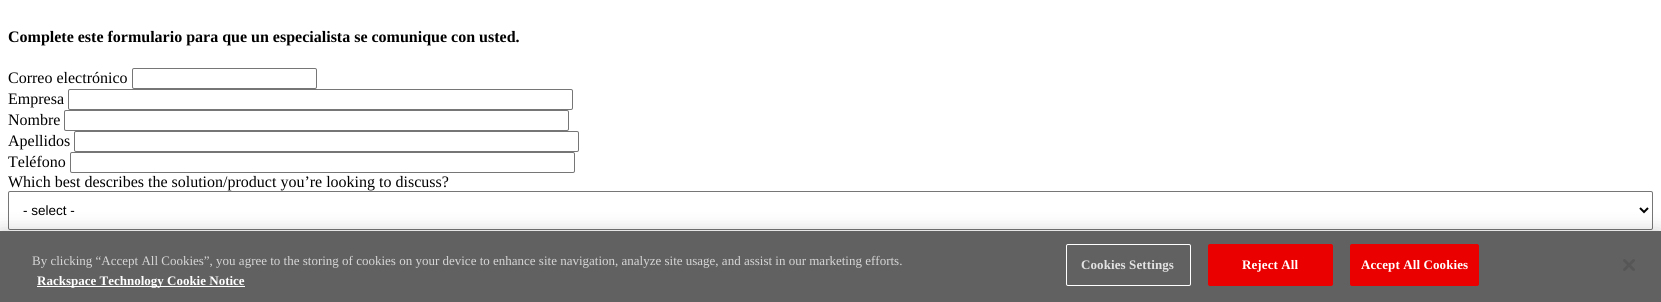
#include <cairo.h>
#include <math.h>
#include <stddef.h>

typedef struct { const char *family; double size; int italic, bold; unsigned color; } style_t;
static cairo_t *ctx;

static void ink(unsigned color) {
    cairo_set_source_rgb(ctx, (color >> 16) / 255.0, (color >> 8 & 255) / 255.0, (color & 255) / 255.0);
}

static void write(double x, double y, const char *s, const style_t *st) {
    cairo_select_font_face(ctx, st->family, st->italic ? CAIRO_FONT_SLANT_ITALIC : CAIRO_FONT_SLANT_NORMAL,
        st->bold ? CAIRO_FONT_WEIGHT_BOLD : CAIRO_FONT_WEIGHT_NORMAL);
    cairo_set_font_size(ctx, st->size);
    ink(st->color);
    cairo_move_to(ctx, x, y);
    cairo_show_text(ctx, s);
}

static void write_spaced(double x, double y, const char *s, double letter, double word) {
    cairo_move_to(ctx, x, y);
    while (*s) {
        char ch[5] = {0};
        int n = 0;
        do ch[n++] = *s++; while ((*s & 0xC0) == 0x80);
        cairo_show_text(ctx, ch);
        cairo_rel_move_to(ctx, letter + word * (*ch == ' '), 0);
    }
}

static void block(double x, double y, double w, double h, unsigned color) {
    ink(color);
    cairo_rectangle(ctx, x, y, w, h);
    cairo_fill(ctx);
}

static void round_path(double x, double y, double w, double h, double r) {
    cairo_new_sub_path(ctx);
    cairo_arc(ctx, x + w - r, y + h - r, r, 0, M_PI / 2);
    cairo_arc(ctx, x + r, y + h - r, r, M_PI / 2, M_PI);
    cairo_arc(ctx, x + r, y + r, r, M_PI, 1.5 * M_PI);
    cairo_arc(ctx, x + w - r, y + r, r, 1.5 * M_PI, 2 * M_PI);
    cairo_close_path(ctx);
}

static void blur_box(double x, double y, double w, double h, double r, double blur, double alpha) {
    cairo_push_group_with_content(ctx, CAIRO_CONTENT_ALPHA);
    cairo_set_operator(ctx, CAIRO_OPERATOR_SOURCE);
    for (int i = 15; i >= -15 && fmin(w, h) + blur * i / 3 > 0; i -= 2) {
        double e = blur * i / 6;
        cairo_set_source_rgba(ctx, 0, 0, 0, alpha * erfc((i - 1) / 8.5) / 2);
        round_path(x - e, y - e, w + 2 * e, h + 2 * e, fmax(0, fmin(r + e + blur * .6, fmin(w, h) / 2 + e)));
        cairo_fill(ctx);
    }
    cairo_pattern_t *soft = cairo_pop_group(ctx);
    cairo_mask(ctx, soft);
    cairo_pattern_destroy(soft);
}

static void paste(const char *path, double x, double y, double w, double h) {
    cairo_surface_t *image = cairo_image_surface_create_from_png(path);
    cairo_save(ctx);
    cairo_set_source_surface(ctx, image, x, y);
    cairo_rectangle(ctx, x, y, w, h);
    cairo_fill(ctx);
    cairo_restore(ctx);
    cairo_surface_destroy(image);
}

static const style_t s1 = {"Liberation Serif", 16, 0, 1, 0x000000};
static const style_t s2 = {"Liberation Serif", 16, 0, 0, 0x000000};
static const style_t s3 = {"Liberation Sans", 13.5, 0, 0, 0x000000};
static const style_t s4 = {"Liberation Serif", 13, 0, 0, 0xd6d6d6};
static const style_t s5 = {"Liberation Serif", 13, 0, 1, 0xffffff};

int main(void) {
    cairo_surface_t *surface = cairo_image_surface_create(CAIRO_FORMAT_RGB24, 1661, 302);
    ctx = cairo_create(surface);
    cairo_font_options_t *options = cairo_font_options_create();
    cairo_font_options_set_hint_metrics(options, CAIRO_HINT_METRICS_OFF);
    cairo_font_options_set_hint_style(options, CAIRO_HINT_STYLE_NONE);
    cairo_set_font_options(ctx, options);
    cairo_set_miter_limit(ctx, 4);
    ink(0xffffff);
    cairo_paint(ctx);
    write(8, 42, "Complete este formulario para que un especialista se comunique con usted.", &s1);
    write(8, 83, "Correo electrónico", &s2);
    round_path(132.5, 68.5, 184, 20, 1.5);
    ink(0x767676);
    cairo_set_line_width(ctx, 1);
    cairo_stroke(ctx);
    write(8, 104, "Empresa", &s2);
    round_path(68.5, 89.5, 504, 20, 1.5);
    ink(0x767676);
    cairo_stroke(ctx);
    write(8, 125, "Nombre", &s2);
    round_path(64.5, 110.5, 504, 20, 1.5);
    ink(0x767676);
    cairo_stroke(ctx);
    write(8, 146, "Apellidos", &s2);
    round_path(74.5, 131.5, 504, 20, 1.5);
    ink(0x767676);
    cairo_stroke(ctx);
    write(8, 167, "Teléfono", &s2);
    round_path(70.5, 152.5, 504, 20, 1.5);
    ink(0x767676);
    cairo_stroke(ctx);
    write(8, 187, "Which best describes the solution/product you’re looking to discuss?", &s2);
    round_path(8.5, 191.5, 1644, 38, 1.5);
    ink(0x767676);
    cairo_stroke(ctx);
    cairo_new_path(ctx);
    cairo_move_to(ctx, 1640, 208);
    cairo_line_to(ctx, 1644, 212);
    cairo_line_to(ctx, 1648, 208);
    ink(0x000000);
    cairo_set_line_width(ctx, 2);
    cairo_stroke(ctx);
    write(23, 215, "- select -", &s3);
    ink(0x000000);
    blur_box(0, 231, 1661, 71, 0, 9, 0.2);
    block(0, 231, 1661, 71, 0x616161);
    write(32, 265, "By clicking “Accept All Cookies”, you agree to the storing of cookies on your device to enhance site navigation, analyze site usage, and assist in our marketing efforts.", &s4);
    block(37, 286, 208, 1, 0xffffff);
    write(37, 285, "Rackspace Technology Cookie Notice", &s5);
    round_path(1066.5, 244.5, 124, 41, 1.5);
    cairo_set_line_width(ctx, 1);
    cairo_stroke(ctx);
    ink(0xe2e2e2);
    write_spaced(1081, 269, "Cookies Settings", 0.1, 0);
    ink(0xeb0000);
    round_path(1208.5, 244.5, 124, 41, 1.5);
    cairo_fill_preserve(ctx);
    cairo_stroke(ctx);
    ink(0xffffff);
    write_spaced(1242, 269, "Reject All", 0.1, 0);
    ink(0xeb0000);
    round_path(1350.5, 244.5, 128, 41, 1.5);
    cairo_fill_preserve(ctx);
    cairo_stroke(ctx);
    ink(0xffffff);
    write_spaced(1361, 269, "Accept All Cookies", 0.1, 0);
    paste("pic1.png", 1623, 259, 12, 12);
    cairo_surface_write_to_png(surface, "screenshot.png");
    cairo_font_options_destroy(options);
    cairo_destroy(ctx);
    cairo_surface_destroy(surface);
    return 0;
}
